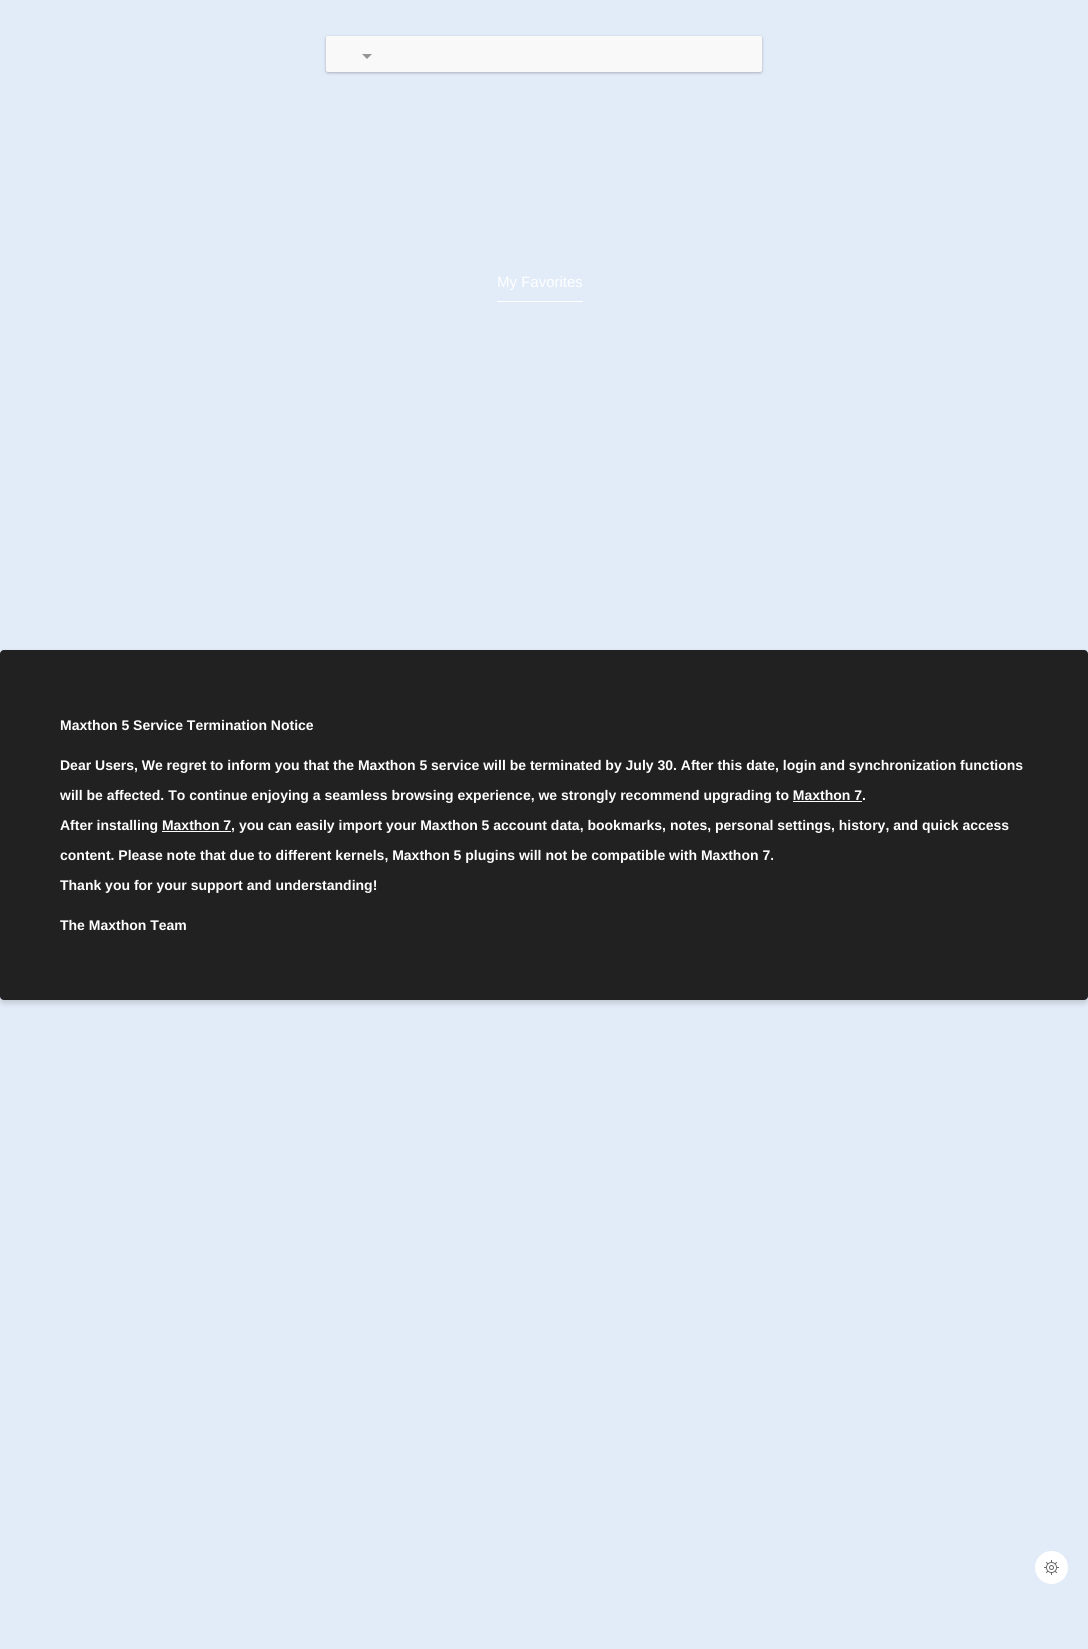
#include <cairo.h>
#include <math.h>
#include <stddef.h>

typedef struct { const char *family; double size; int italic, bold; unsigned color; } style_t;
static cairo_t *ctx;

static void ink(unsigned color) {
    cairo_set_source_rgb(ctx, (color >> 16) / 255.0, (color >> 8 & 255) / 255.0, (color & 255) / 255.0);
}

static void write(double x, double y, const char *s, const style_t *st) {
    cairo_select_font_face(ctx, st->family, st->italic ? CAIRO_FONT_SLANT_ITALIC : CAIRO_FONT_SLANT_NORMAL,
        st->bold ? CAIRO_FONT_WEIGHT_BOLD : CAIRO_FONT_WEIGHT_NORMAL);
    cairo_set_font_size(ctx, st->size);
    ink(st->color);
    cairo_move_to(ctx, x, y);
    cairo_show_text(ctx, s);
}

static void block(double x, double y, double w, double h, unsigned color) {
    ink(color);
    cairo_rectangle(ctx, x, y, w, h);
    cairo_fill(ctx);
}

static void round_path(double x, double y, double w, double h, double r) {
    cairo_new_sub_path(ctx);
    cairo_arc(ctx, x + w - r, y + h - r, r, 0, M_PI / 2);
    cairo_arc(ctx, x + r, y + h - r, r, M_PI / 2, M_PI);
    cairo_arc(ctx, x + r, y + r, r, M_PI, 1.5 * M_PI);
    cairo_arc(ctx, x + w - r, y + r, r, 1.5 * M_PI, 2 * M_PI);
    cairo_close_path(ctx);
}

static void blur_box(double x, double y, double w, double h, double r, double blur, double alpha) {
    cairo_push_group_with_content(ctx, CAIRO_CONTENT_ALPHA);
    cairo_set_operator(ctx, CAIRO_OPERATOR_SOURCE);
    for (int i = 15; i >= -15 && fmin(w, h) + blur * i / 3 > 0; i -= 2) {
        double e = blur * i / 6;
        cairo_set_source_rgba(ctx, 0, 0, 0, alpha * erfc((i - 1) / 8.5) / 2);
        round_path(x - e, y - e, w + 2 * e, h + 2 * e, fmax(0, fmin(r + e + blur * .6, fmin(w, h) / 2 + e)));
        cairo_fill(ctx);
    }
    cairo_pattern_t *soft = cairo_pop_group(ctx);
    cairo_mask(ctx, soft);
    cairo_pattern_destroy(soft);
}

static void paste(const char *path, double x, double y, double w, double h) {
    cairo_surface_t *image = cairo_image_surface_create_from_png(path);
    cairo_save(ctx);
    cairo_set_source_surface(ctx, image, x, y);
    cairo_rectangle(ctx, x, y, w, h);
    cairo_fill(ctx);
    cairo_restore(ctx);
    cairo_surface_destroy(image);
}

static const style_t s1 = {"Liberation Sans", 15, 0, 0, 0xffffff};
static const style_t s2 = {"Liberation Sans", 14, 0, 1, 0xffffff};

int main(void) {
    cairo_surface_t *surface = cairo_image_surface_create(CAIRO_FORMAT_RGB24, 1088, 1649);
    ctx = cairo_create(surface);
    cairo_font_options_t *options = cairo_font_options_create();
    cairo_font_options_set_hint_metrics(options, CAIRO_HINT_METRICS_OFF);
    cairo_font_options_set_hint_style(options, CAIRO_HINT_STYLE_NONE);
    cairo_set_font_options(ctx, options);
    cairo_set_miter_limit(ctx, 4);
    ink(0xe2ebf8);
    cairo_paint(ctx);
    ink(0x000000);
    blur_box(326, 37, 436, 36, 2, 1.5, 0.25);
    ink(0xf9f9f9);
    round_path(326, 36, 436, 36, 2);
    cairo_fill(ctx);
    ink(0x959595);
    cairo_new_path(ctx);
    cairo_move_to(ctx, 362, 54);
    cairo_line_to(ctx, 372, 54);
    cairo_line_to(ctx, 367, 59);
    cairo_close_path(ctx);
    cairo_fill(ctx);
    block(497, 301, 86, 1, 0xffffff);
    write(497, 287, "My Favorites", &s1);
    ink(0x000000);
    blur_box(0, 653, 1088, 350, 4, 3, 0.16);
    ink(0x212121);
    round_path(0, 650, 1088, 350, 4);
    cairo_fill(ctx);
    write(60, 730, "Maxthon 5 Service Termination Notice", &s2);
    write(60, 770, "Dear Users, We regret to inform you that the Maxthon 5 service will be terminated by July 30. After this date, login and synchronization functions", &s2);
    write(60, 800, "will be affected. To continue enjoying a seamless browsing experience, we strongly recommend upgrading to Maxthon 7.", &s2);
    block(793, 801, 69, 1, 0xfefefe);
    write(60, 830, "After installing Maxthon 7, you can easily import your Maxthon 5 account data, bookmarks, notes, personal settings, history, and quick access", &s2);
    block(162, 831, 69, 1, 0xfefefe);
    write(60, 860, "content. Please note that due to different kernels, Maxthon 5 plugins will not be compatible with Maxthon 7.", &s2);
    write(60, 890, "Thank you for your support and understanding!", &s2);
    write(60, 930, "The Maxthon Team", &s2);
    cairo_new_path(ctx);
    cairo_arc(ctx, 1051.5, 1567.5, 16.5, 0, 2 * M_PI);
    cairo_fill(ctx);
    paste("pic1.png", 1044, 1560, 15, 15);
    cairo_surface_write_to_png(surface, "screenshot.png");
    cairo_font_options_destroy(options);
    cairo_destroy(ctx);
    cairo_surface_destroy(surface);
    return 0;
}
